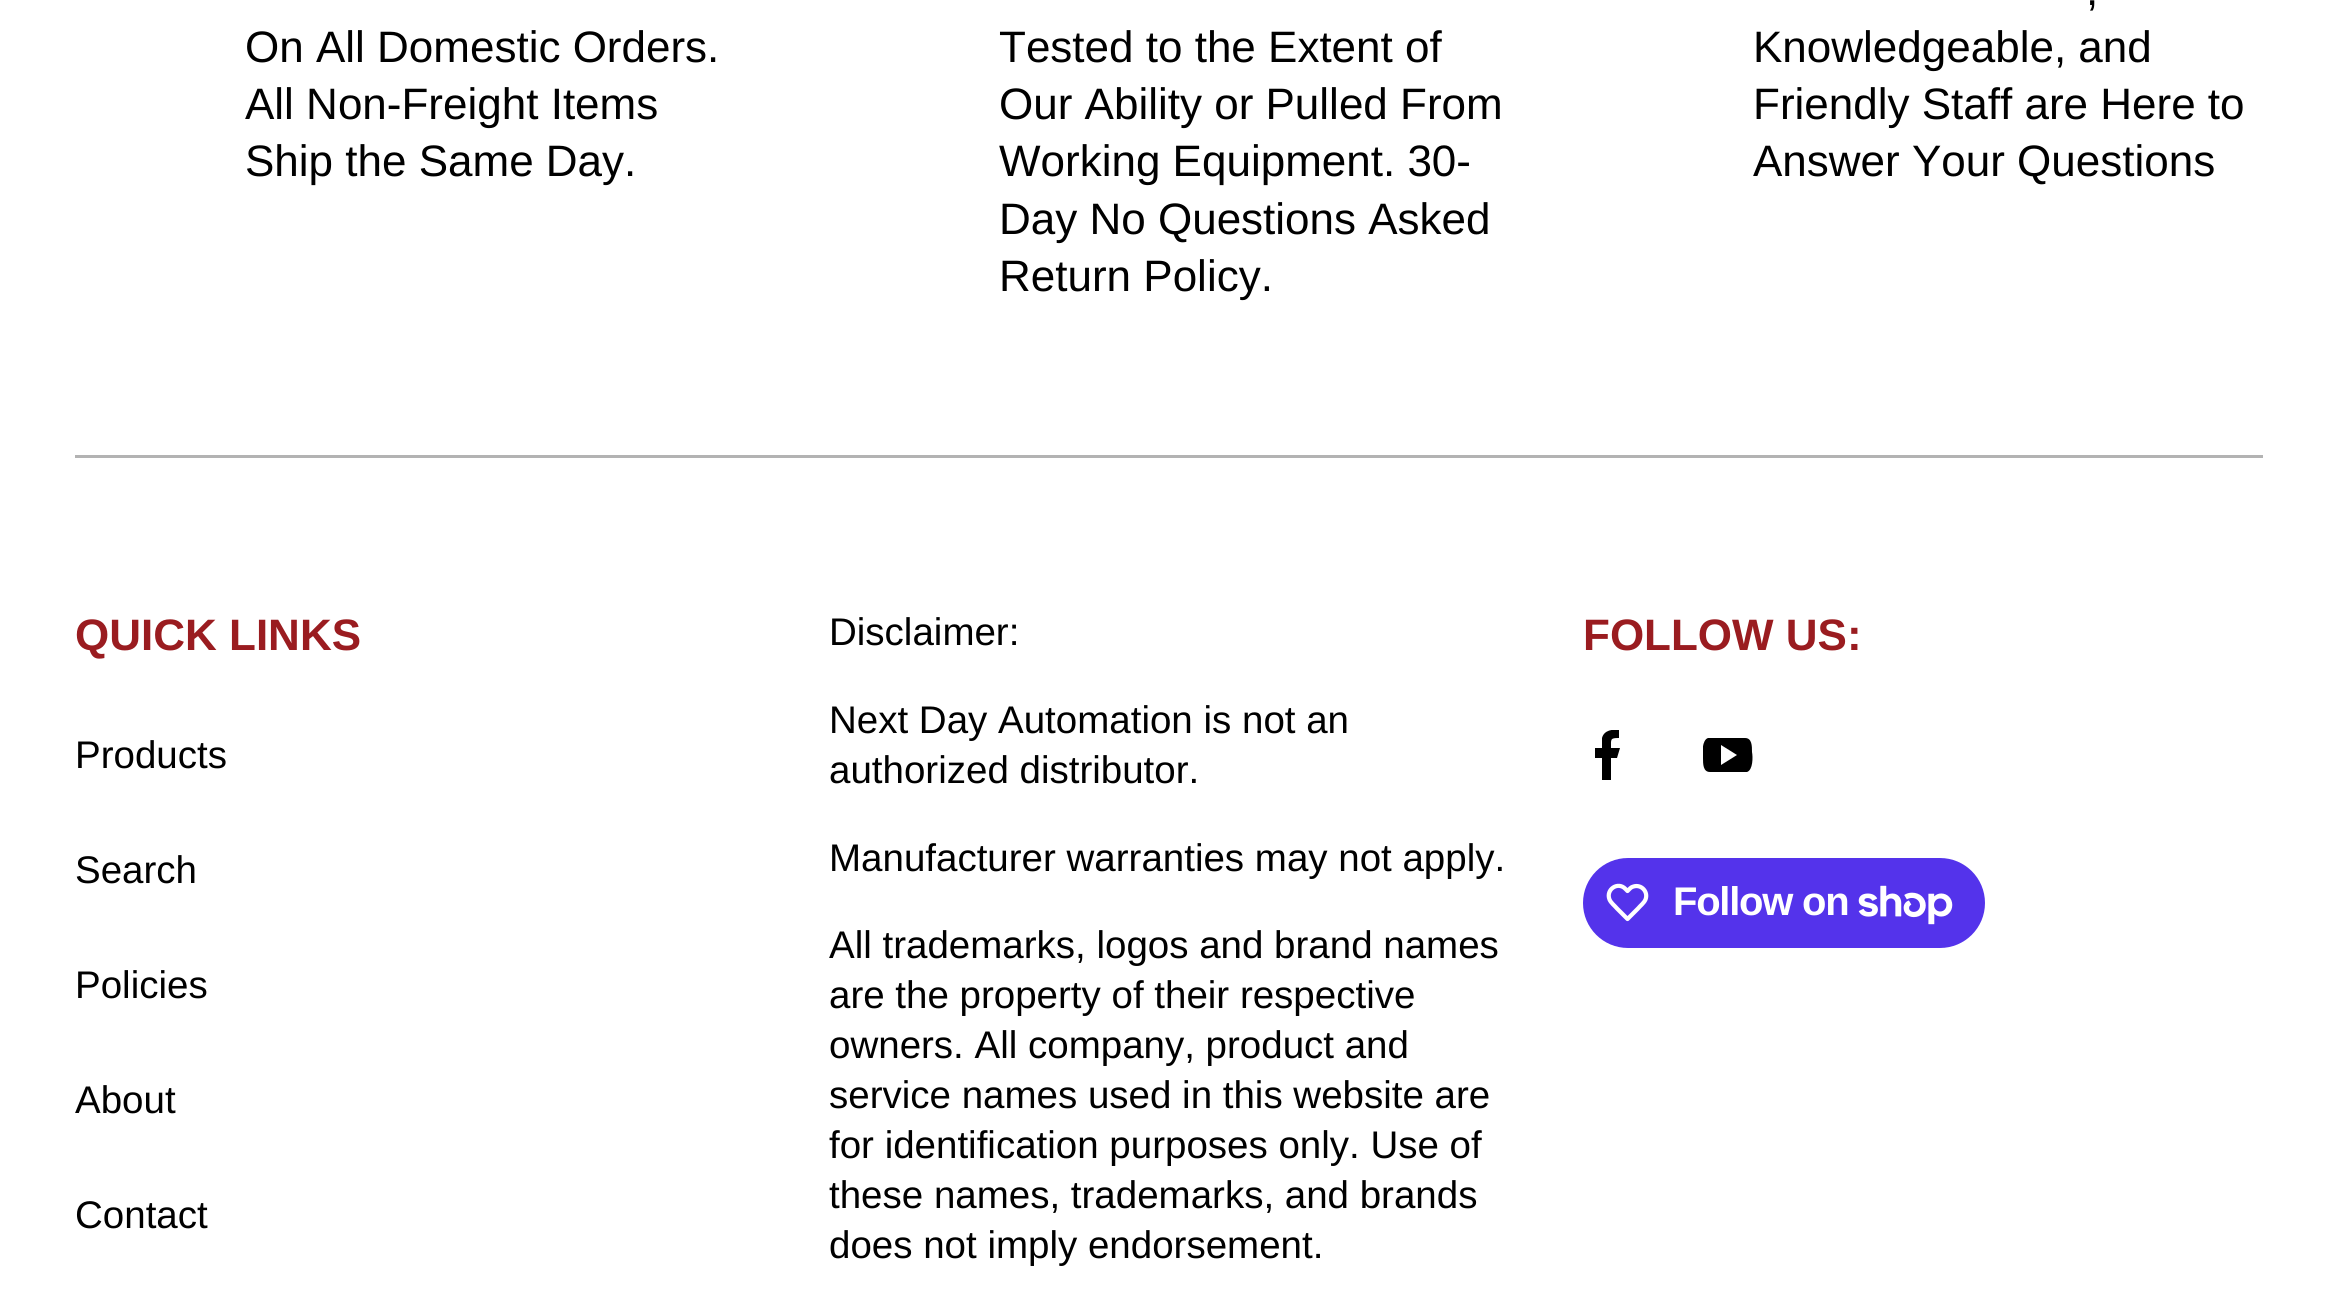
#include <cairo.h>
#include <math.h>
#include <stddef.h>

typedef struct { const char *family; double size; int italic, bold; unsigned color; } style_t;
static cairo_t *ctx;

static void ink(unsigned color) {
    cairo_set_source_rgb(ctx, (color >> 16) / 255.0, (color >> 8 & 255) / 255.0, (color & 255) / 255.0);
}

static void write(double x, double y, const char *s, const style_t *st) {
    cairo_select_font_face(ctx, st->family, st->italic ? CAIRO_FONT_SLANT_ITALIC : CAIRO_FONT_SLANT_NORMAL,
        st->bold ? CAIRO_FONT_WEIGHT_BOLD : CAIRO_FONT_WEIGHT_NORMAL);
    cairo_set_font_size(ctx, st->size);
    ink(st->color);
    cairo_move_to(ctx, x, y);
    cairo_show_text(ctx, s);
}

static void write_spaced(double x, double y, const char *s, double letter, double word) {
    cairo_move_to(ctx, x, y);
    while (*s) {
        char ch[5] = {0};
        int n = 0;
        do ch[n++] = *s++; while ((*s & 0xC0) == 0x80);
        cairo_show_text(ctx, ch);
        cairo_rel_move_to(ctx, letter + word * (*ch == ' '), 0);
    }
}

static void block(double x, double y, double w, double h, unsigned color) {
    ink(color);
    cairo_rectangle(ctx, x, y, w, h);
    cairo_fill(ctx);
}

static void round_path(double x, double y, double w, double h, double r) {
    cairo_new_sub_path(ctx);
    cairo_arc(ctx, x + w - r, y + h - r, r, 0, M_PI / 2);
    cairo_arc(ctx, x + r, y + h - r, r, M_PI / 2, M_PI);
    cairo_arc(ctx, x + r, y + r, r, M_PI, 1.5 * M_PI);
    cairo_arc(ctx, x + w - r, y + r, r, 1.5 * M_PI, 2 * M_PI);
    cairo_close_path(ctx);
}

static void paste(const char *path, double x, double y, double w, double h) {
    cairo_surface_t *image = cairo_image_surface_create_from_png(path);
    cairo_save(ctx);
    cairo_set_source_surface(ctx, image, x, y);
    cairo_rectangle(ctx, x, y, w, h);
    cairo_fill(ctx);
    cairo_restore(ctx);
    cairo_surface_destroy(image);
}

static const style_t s1 = {"Liberation Sans", 44, 0, 0, 0x000000};
static const style_t s2 = {"Liberation Sans", 44, 0, 1, 0x9a1c20};
static const style_t s3 = {"Liberation Sans", 38.5, 0, 0, 0x000000};

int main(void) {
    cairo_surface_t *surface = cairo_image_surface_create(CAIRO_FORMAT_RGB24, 2336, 1312);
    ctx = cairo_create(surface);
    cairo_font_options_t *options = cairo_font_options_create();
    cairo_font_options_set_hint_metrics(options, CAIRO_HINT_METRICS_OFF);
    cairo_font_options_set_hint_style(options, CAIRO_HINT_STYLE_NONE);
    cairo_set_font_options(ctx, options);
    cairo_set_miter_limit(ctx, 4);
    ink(0xffffff);
    cairo_paint(ctx);
    write(245, 62, "On All Domestic Orders.", &s1);
    write(245, 119, "All Non-Freight Items", &s1);
    write(245, 176, "Ship the Same Day.", &s1);
    write(999, 62, "Tested to the Extent of", &s1);
    write(999, 119, "Our Ability or Pulled From", &s1);
    write(999, 176, "Working Equipment. 30-", &s1);
    write(999, 234, "Day No Questions Asked", &s1);
    write(999, 291, "Return Policy.", &s1);
    write(2086, 5, ",", &s1);
    write(1753, 62, "Knowledgeable, and", &s1);
    write(1753, 119, "Friendly Staff are Here to", &s1);
    write(1753, 176, "Answer Your Questions", &s1);
    block(75, 455, 2188, 3, 0xb3b3b3);
    write(75, 650, "QUICK LINKS", &s2);
    write(75, 768, "Products", &s3);
    write(75, 883, "Search", &s3);
    write(75, 998, "Policies", &s3);
    write(75, 1113, "About", &s3);
    write(75, 1228, "Contact", &s3);
    write(829, 645, "Disclaimer:", &s3);
    write(829, 733, "Next Day Automation is not an", &s3);
    write(829, 783, "authorized distributor.", &s3);
    write(829, 871, "Manufacturer warranties may not apply.", &s3);
    write(829, 958, "All trademarks, logos and brand names", &s3);
    write(829, 1008, "are the property of their respective", &s3);
    write(829, 1058, "owners. All company, product and", &s3);
    write(829, 1108, "service names used in this website are", &s3);
    write(829, 1158, "for identification purposes only. Use of", &s3);
    write(829, 1208, "these names, trademarks, and brands", &s3);
    write(829, 1258, "does not imply endorsement.", &s3);
    write(1583, 650, "FOLLOW US:", &s2);
    cairo_save(ctx);
    cairo_rectangle(ctx, 1583, 730, 50, 50);
    cairo_clip(ctx);
    ink(0x000000);
    cairo_new_path(ctx);
    cairo_move_to(ctx, 1602, 780);
    cairo_line_to(ctx, 1602, 758);
    cairo_line_to(ctx, 1595, 758);
    cairo_line_to(ctx, 1595, 748);
    cairo_line_to(ctx, 1602, 748);
    cairo_line_to(ctx, 1602, 738);
    cairo_curve_to(ctx, 1604, 730, 1613, 729, 1619, 730);
    cairo_line_to(ctx, 1619, 738);
    cairo_curve_to(ctx, 1610, 738, 1611, 739, 1611, 748);
    cairo_line_to(ctx, 1620, 748);
    cairo_line_to(ctx, 1617, 758);
    cairo_line_to(ctx, 1611, 758);
    cairo_line_to(ctx, 1611, 780);
    cairo_close_path(ctx);
    cairo_fill(ctx);
    cairo_restore(ctx);
    cairo_save(ctx);
    cairo_rectangle(ctx, 1703, 730, 50, 50);
    cairo_clip(ctx);
    ink(0x000000);
    cairo_set_fill_rule(ctx, CAIRO_FILL_RULE_EVEN_ODD);
    cairo_new_path(ctx);
    cairo_move_to(ctx, 1745, 738);
    cairo_curve_to(ctx, 1752, 738, 1752, 746, 1752, 752);
    cairo_curve_to(ctx, 1753, 757, 1753, 770, 1747, 772);
    cairo_line_to(ctx, 1735, 772);
    cairo_line_to(ctx, 1710, 772);
    cairo_curve_to(ctx, 1703, 772, 1703, 764, 1703, 758);
    cairo_curve_to(ctx, 1702, 753, 1702, 740, 1708, 738);
    cairo_line_to(ctx, 1720, 738);
    cairo_close_path(ctx);
    cairo_move_to(ctx, 1737, 755);
    cairo_line_to(ctx, 1721, 745);
    cairo_line_to(ctx, 1721, 765);
    cairo_close_path(ctx);
    cairo_fill(ctx);
    cairo_restore(ctx);
    ink(0x5433eb);
    round_path(1583, 858, 402, 90, 45);
    cairo_fill(ctx);
    cairo_new_path(ctx);
    cairo_move_to(ctx, 1625.5, 889);
    cairo_line_to(ctx, 1627.5, 891);
    cairo_curve_to(ctx, 1629.5, 889, 1631, 887, 1633.5, 886.5);
    cairo_curve_to(ctx, 1641.5, 884, 1648.5, 892, 1645.5, 899.5);
    cairo_curve_to(ctx, 1644, 903, 1640.5, 905.5, 1638, 908.5);
    cairo_line_to(ctx, 1627.5, 919);
    cairo_line_to(ctx, 1617, 908.5);
    cairo_curve_to(ctx, 1614.5, 905.5, 1611, 903, 1609.5, 899.5);
    cairo_curve_to(ctx, 1605.5, 889.5, 1618, 881, 1625.5, 889);
    cairo_close_path(ctx);
    ink(0xffffff);
    cairo_set_line_width(ctx, 4.2);
    cairo_set_line_join(ctx, CAIRO_LINE_JOIN_ROUND);
    cairo_stroke(ctx);
    cairo_set_font_size(ctx, 40);
    write_spaced(1673, 915, "Follow on", -1.25, 0);
    paste("pic1.png", 1858, 885, 95, 40);
    cairo_surface_write_to_png(surface, "screenshot.png");
    cairo_font_options_destroy(options);
    cairo_destroy(ctx);
    cairo_surface_destroy(surface);
    return 0;
}
